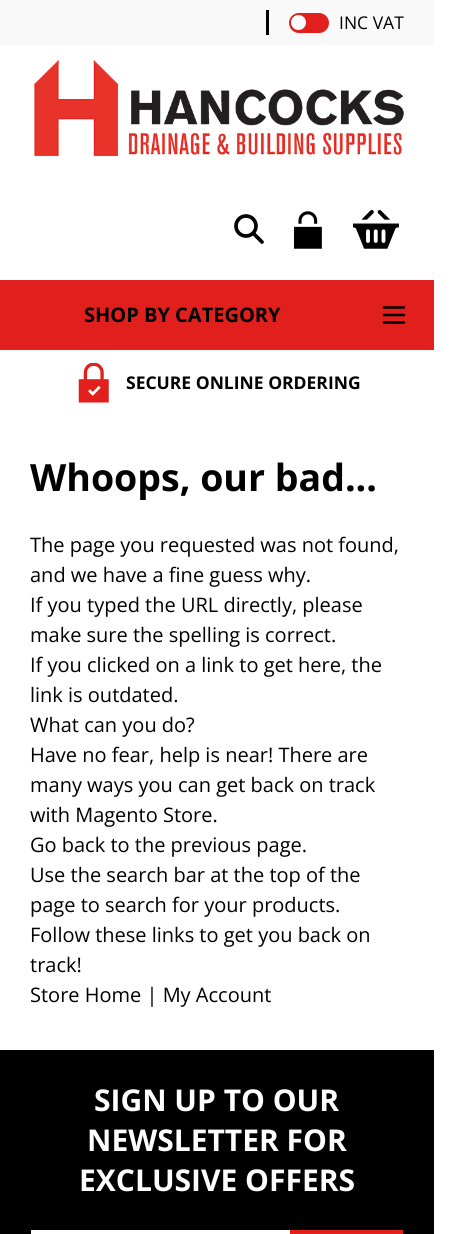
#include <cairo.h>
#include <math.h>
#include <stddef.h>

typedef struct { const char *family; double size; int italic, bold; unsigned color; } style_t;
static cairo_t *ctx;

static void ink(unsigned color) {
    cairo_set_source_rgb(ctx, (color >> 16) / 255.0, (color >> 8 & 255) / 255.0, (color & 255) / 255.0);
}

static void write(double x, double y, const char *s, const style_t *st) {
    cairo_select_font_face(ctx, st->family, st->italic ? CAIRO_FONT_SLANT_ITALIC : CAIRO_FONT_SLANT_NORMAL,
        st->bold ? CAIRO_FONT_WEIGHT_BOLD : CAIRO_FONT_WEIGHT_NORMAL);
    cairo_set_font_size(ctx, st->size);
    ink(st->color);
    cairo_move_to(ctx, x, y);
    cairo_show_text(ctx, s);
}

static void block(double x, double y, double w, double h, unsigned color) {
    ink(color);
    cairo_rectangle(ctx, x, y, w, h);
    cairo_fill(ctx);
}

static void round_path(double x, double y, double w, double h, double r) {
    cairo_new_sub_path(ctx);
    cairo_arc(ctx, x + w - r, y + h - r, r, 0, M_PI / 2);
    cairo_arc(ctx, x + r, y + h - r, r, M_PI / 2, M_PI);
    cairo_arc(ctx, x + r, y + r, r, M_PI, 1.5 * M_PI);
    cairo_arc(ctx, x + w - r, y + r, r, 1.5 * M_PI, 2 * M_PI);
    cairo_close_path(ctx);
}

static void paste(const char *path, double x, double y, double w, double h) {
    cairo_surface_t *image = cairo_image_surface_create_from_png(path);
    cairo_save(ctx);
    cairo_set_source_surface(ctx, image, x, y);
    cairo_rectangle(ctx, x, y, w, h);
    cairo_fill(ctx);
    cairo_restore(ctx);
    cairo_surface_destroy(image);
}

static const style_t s1 = {"Open Sans", 17.5, 0, 0, 0x000000};
static const style_t s2 = {"Open Sans", 20, 0, 1, 0x000000};
static const style_t s3 = {"Open Sans", 17.5, 0, 1, 0x000000};
static const style_t s4 = {"Open Sans", 37.5, 0, 1, 0x000000};
static const style_t s5 = {"Open Sans", 20, 0, 0, 0x000000};
static const style_t s6 = {"Open Sans", 30, 0, 1, 0xffffff};

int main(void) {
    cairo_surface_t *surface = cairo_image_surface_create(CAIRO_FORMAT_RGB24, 452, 1234);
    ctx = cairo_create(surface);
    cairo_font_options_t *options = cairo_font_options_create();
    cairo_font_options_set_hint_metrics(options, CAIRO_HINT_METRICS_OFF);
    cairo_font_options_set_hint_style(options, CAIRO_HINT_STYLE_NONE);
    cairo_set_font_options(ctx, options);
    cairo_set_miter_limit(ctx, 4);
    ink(0xffffff);
    cairo_paint(ctx);
    block(0, 0, 434, 45, 0xf9f9f9);
    block(266, 10, 3, 25, 0x000000);
    ink(0xe11f1c);
    round_path(289, 13, 40, 20, 10);
    cairo_fill(ctx);
    ink(0xffffff);
    cairo_arc(ctx, 298.5, 22.5, 7.5, 0, 2 * M_PI);
    cairo_fill(ctx);
    write(339, 29, "INC VAT", &s1);
    paste("pic1.png", 33, 60, 371, 97);
    cairo_arc(ctx, 246, 226, 10, 0, 2 * M_PI);
    cairo_set_line_width(ctx, 3.7);
    cairo_stroke(ctx);
    cairo_new_path(ctx);
    cairo_move_to(ctx, 254, 234);
    cairo_line_to(ctx, 262, 242);
    cairo_set_line_cap(ctx, CAIRO_LINE_CAP_ROUND);
    cairo_stroke(ctx);
    paste("pic2.png", 294, 211, 28, 38);
    paste("pic3.png", 353, 210, 46, 39);
    block(0, 280, 434, 70, 0xe11f1c);
    write(84, 322, "SHOP BY CATEGORY", &s2);
    cairo_new_path(ctx);
    cairo_move_to(ctx, 384, 307.5);
    cairo_line_to(ctx, 404, 307.5);
    cairo_move_to(ctx, 384, 315);
    cairo_line_to(ctx, 404, 315);
    cairo_move_to(ctx, 384, 322.5);
    cairo_line_to(ctx, 404, 322.5);
    cairo_set_line_width(ctx, 2.5);
    cairo_set_line_join(ctx, CAIRO_LINE_JOIN_ROUND);
    cairo_stroke(ctx);
    paste("pic4.png", 78, 363, 31, 40);
    write(126, 389, "SECURE ONLINE ORDERING", &s3);
    write(30, 491, "Whoops, our bad...", &s4);
    write(30, 552, "The page you requested was not found,", &s5);
    write(30, 582, "and we have a fine guess why.", &s5);
    write(30, 612, "If you typed the URL directly, please", &s5);
    write(30, 642, "make sure the spelling is correct.", &s5);
    write(30, 672, "If you clicked on a link to get here, the", &s5);
    write(30, 702, "link is outdated.", &s5);
    write(30, 732, "What can you do?", &s5);
    write(30, 762, "Have no fear, help is near! There are", &s5);
    write(30, 792, "many ways you can get back on track", &s5);
    write(30, 822, "with Magento Store.", &s5);
    write(30, 852, "Go back to the previous page.", &s5);
    write(30, 882, "Use the search bar at the top of the", &s5);
    write(30, 912, "page to search for your products.", &s5);
    write(30, 942, "Follow these links to get you back on", &s5);
    write(30, 972, "track!", &s5);
    write(30, 1002, "Store Home | My Account", &s5);
    block(0, 1050, 434, 184, 0x000000);
    write(94, 1111, "SIGN UP TO OUR", &s6);
    write(87, 1151, "NEWSLETTER FOR", &s6);
    write(79, 1191, "EXCLUSIVE OFFERS", &s6);
    block(31, 1230, 259, 4, 0xffffff);
    block(290, 1230, 113, 4, 0xe11f1c);
    cairo_surface_write_to_png(surface, "screenshot.png");
    cairo_font_options_destroy(options);
    cairo_destroy(ctx);
    cairo_surface_destroy(surface);
    return 0;
}
